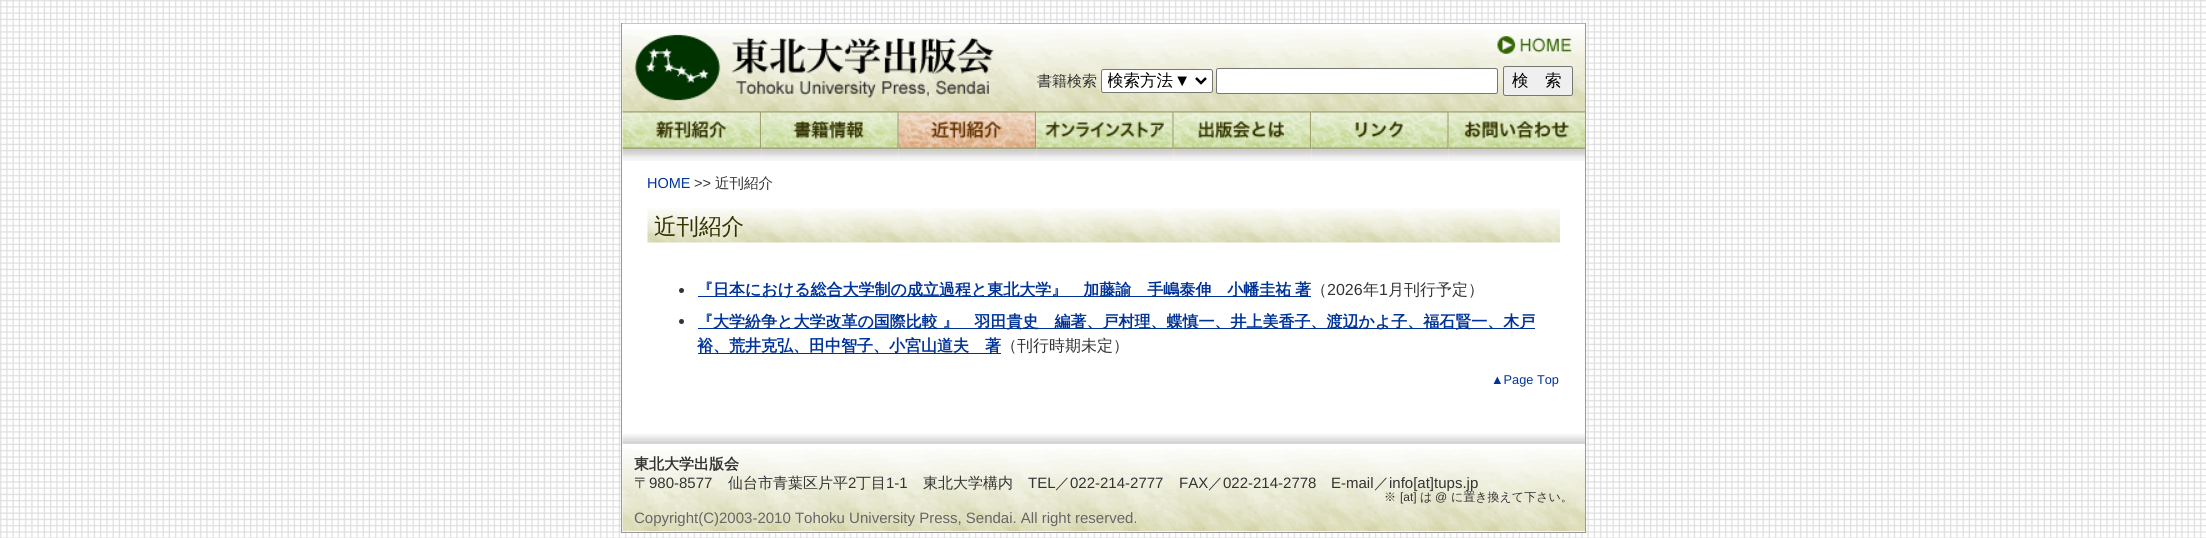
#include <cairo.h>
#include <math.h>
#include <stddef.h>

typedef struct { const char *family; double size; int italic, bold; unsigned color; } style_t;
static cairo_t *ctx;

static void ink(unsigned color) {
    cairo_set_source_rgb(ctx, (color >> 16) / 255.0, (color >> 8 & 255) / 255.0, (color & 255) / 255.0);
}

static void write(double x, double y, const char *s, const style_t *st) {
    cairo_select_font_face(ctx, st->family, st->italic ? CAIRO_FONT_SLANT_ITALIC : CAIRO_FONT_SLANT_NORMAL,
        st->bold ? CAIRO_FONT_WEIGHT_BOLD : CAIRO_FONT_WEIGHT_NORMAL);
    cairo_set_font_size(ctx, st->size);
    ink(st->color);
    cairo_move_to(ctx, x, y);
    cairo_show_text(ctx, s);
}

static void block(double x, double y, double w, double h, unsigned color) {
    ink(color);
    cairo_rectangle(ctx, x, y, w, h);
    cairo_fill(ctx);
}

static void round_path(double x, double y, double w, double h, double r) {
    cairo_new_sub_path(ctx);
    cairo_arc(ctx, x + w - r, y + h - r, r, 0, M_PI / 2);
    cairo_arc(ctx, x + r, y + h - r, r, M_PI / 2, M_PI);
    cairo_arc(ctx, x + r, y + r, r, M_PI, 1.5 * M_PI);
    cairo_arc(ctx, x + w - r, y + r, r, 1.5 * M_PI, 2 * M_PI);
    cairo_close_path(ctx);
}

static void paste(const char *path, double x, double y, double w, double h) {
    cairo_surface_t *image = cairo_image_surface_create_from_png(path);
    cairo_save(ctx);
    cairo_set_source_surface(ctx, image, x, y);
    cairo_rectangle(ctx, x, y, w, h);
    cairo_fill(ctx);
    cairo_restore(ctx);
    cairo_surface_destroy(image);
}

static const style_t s1 = {"WenQuanYi Zen Hei Medium", 15, 0, 0, 0x333333};
static const style_t s2 = {"WenQuanYi Zen Hei Medium", 16.5, 0, 0, 0x000000};
static const style_t s3 = {"Liberation Sans", 16.5, 0, 0, 0x000000};
static const style_t s4 = {"Liberation Sans", 14.5, 0, 0, 0x003399};
static const style_t s5 = {"Liberation Sans", 14.5, 0, 0, 0x333333};
static const style_t s6 = {"WenQuanYi Zen Hei Medium", 14.5, 0, 0, 0x333333};
static const style_t s7 = {"WenQuanYi Zen Hei Medium", 22.5, 0, 0, 0x333300};
static const style_t s8 = {"WenQuanYi Zen Hei", 16, 0, 1, 0x003399};
static const style_t s9 = {"WenQuanYi Zen Hei Medium", 16, 0, 0, 0x333333};
static const style_t s10 = {"Liberation Sans", 16, 0, 0, 0x333333};
static const style_t s11 = {"Liberation Sans", 12.75, 0, 0, 0x003399};
static const style_t s12 = {"WenQuanYi Zen Hei", 15, 0, 1, 0x333333};
static const style_t s13 = {"Liberation Sans", 15, 0, 0, 0x333333};
static const style_t s14 = {"WenQuanYi Zen Hei Medium", 12, 0, 0, 0x333333};
static const style_t s15 = {"Liberation Sans", 12, 0, 0, 0x333333};
static const style_t s16 = {"Liberation Sans", 15, 0, 0, 0x666666};

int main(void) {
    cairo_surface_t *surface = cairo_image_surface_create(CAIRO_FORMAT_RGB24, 2206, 538);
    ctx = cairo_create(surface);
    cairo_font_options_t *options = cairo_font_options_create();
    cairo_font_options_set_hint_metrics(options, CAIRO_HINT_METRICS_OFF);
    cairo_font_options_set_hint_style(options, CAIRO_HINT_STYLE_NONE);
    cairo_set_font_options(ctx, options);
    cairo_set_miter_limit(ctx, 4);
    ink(0xffffff);
    cairo_paint(ctx);
    paste("pic1.png", 0, 0, 2206, 538);
    ink(0xffffff);
    cairo_rectangle(ctx, 621.5, 23.5, 964, 509);
    cairo_fill_preserve(ctx);
    ink(0x999999);
    cairo_set_line_width(ctx, 1);
    cairo_stroke(ctx);
    paste("pic2.png", 622, 23, 963, 89);
    paste("pic3.png", 622, 23, 376, 89);
    paste("pic4.png", 1497, 36, 75, 18);
    write(1037, 86, "書籍検索", &s1);
    ink(0xffffff);
    round_path(1101.5, 69.5, 111, 23, 2);
    cairo_fill_preserve(ctx);
    ink(0x767676);
    cairo_stroke(ctx);
    cairo_new_path(ctx);
    cairo_move_to(ctx, 1196, 78);
    cairo_line_to(ctx, 1201, 83);
    cairo_line_to(ctx, 1206, 78);
    ink(0x000000);
    cairo_set_line_width(ctx, 2.5);
    cairo_stroke(ctx);
    cairo_save(ctx);
    cairo_rectangle(ctx, 1108, 70, 83, 21);
    cairo_clip(ctx);
    write(1107, 86, "検索方法", &s2);
    cairo_restore(ctx);
    write(1174, 86, "▼", &s3);
    ink(0xffffff);
    round_path(1216.5, 68.5, 281, 25, 2);
    cairo_fill_preserve(ctx);
    ink(0x767676);
    cairo_set_line_width(ctx, 1);
    cairo_stroke(ctx);
    ink(0xefefef);
    round_path(1503.5, 66.5, 69, 29, 2);
    cairo_fill_preserve(ctx);
    ink(0x767676);
    cairo_stroke(ctx);
    write(1512, 86, "検　索", &s2);
    paste("pic5.png", 622, 111, 140, 50);
    paste("pic6.png", 761, 111, 138, 50);
    paste("pic7.png", 898, 111, 139, 50);
    paste("pic8.png", 1036, 111, 138, 50);
    paste("pic9.png", 1173, 111, 139, 50);
    paste("pic10.png", 1311, 111, 138, 50);
    paste("pic11.png", 1448, 111, 137, 50);
    write(647, 188, "HOME", &s4);
    write(694, 188, ">>", &s5);
    write(715, 188, "近刊紹介", &s6);
    paste("pic12.png", 647, 208, 913, 35);
    write(654, 234, "近刊紹介", &s7);
    ink(0x333333);
    cairo_new_path(ctx);
    cairo_arc(ctx, 681.5, 290.5, 2.5, 0, 2 * M_PI);
    cairo_fill(ctx);
    block(698, 296, 613, 1, 0x003399);
    write(697, 295, "『日本における総合大学制の成立過程と東北大学』　加藤諭　手嶋泰伸　小幡圭祐", &s8);
    write(1295, 295, "著", &s8);
    write(1311, 295, "（", &s9);
    write(1327, 295, "2026", &s10);
    write(1363, 295, "年", &s9);
    write(1379, 295, "1", &s10);
    write(1388, 295, "月刊行予定）", &s9);
    cairo_new_path(ctx);
    cairo_arc(ctx, 681.5, 321.5, 2.5, 0, 2 * M_PI);
    cairo_fill(ctx);
    block(698, 328, 837, 1, 0x003399);
    write(697, 327, "『大学紛争と大学改革の国際比較 』　羽田貴史　編著、戸村理、蝶慎一、井上美香子、渡辺かよ子、福石賢一、木戸", &s8);
    block(698, 353, 303, 1, 0x003399);
    write(697, 351, "裕、荒井克弘、田中智子、小宮山道夫　著", &s8);
    write(1001, 351, "（刊行時期未定）", &s9);
    write(1491, 384, "▲Page Top", &s11);
    paste("pic13.png", 622, 433, 963, 99);
    write(634, 469, "東北大学出版会", &s12);
    write(634, 488, "〒", &s1);
    write(649, 488, "980-8577", &s13);
    write(728, 488, "仙台市青葉区片平", &s1);
    write(848, 488, "2", &s13);
    write(856, 488, "丁目", &s1);
    write(886, 488, "1-1", &s13);
    write(923, 488, "東北大学構内", &s1);
    write(1028, 488, "TEL", &s13);
    write(1055, 488, "／", &s1);
    write(1070, 488, "022-214-2777", &s13);
    write(1179, 488, "FAX", &s13);
    write(1208, 488, "／", &s1);
    write(1223, 488, "022-214-2778", &s13);
    write(1331, 488, "E-mail", &s13);
    write(1374, 488, "／", &s1);
    write(1389, 488, "info[at]tups.jp", &s13);
    write(1384, 501, "※", &s14);
    write(1400, 501, "[at]", &s15);
    write(1420, 501, "は", &s14);
    write(1435, 501, "@", &s15);
    write(1451, 501, "に置き換えて下さい。", &s14);
    write(634, 523, "Copyright(C)2003-2010 Tohoku University Press, Sendai. All right reserved.", &s16);
    cairo_surface_write_to_png(surface, "screenshot.png");
    cairo_font_options_destroy(options);
    cairo_destroy(ctx);
    cairo_surface_destroy(surface);
    return 0;
}
